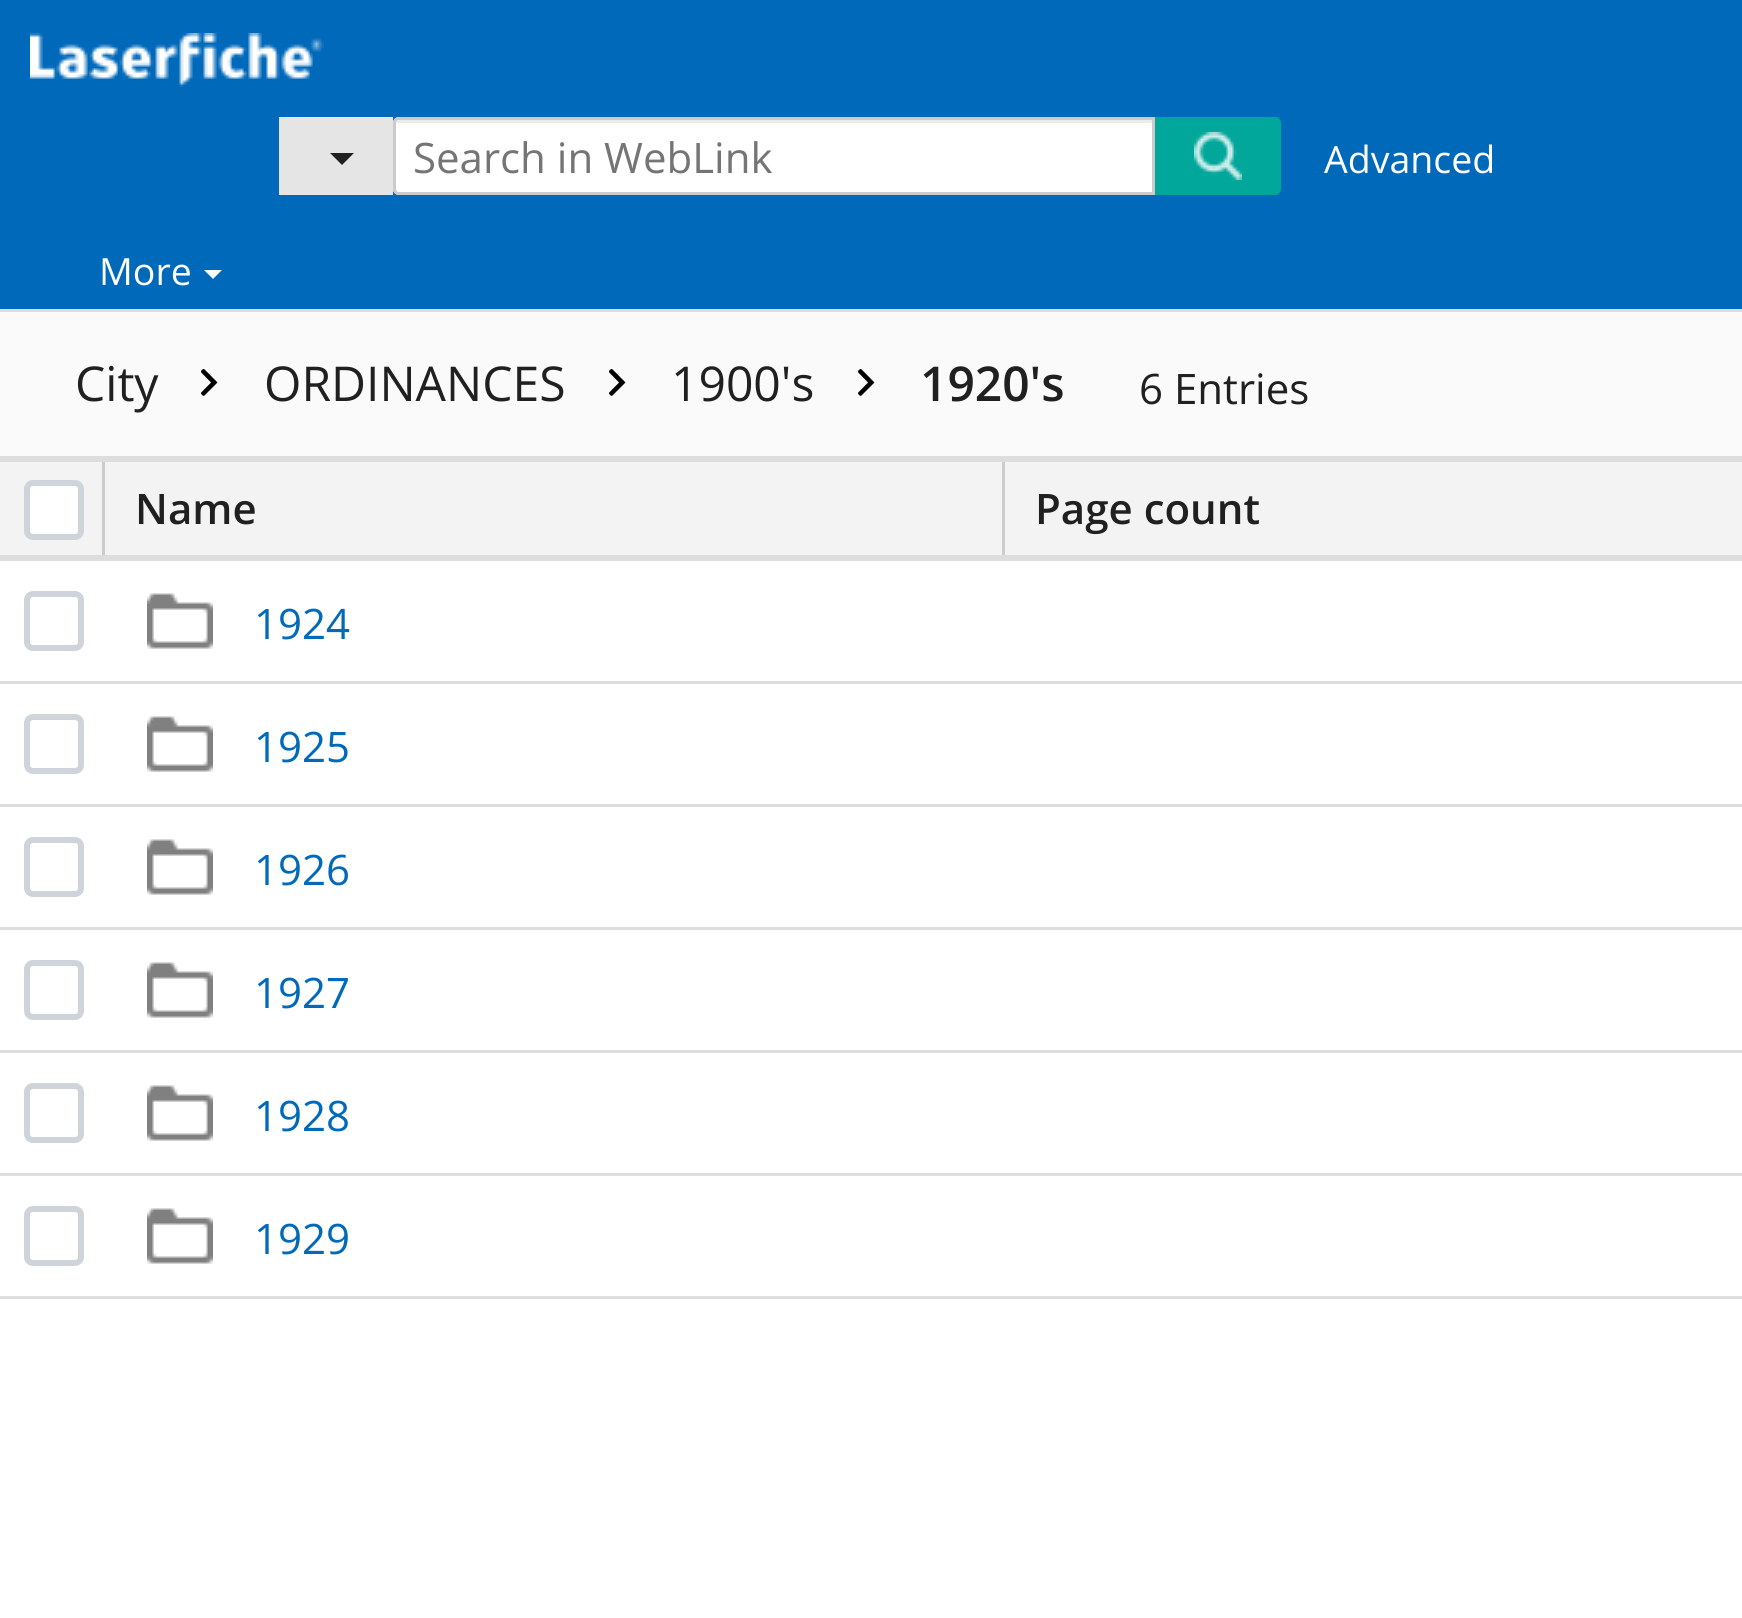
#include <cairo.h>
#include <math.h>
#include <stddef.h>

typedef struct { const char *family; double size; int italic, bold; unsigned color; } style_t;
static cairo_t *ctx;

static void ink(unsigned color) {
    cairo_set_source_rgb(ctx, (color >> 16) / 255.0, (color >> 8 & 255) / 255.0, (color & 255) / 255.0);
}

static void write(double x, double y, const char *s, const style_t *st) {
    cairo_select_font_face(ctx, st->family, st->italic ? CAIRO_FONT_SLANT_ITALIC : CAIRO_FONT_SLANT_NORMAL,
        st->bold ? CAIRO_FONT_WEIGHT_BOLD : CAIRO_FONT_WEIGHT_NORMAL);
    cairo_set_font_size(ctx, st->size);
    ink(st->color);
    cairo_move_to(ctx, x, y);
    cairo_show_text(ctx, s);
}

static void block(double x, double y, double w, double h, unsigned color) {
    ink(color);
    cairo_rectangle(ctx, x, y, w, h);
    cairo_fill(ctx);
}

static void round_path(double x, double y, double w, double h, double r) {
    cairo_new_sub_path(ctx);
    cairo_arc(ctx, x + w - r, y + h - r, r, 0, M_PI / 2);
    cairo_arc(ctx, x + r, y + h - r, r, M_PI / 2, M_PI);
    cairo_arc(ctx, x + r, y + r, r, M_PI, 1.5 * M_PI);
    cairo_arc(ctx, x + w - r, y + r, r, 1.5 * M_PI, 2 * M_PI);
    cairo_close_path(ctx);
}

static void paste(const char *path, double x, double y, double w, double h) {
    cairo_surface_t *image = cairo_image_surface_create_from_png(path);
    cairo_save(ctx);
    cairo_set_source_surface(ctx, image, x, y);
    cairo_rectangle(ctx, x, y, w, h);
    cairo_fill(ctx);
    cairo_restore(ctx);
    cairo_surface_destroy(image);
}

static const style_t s1 = {"Open Sans", 42, 0, 0, 0x757575};
static const style_t s2 = {"Open Sans", 37.5, 0, 0, 0xffffff};
static const style_t s3 = {"Open Sans", 48, 0, 0, 0x202020};
static const style_t s4 = {"Open Sans SemiBold", 48, 0, 0, 0x202020};
static const style_t s5 = {"Open Sans", 42, 0, 0, 0x202020};
static const style_t s6 = {"Open Sans SemiBold", 42, 0, 0, 0x202020};
static const style_t s7 = {"Open Sans", 42, 0, 0, 0x0069ba};

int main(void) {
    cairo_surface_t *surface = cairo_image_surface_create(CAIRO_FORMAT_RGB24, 1742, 1618);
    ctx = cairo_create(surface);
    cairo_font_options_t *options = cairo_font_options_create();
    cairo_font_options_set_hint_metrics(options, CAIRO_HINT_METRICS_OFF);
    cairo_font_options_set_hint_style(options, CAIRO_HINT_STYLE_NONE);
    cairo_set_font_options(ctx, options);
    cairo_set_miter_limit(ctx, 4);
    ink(0xfafafa);
    cairo_paint(ctx);
    block(0, 0, 1742, 309, 0x0069ba);
    block(0, 309, 1742, 3, 0xdddddd);
    paste("pic1.png", 30, 33, 294, 54);
    block(279, 117, 114, 78, 0xe5e5e5);
    ink(0x202020);
    cairo_new_path(ctx);
    cairo_move_to(ctx, 330, 153);
    cairo_line_to(ctx, 354, 153);
    cairo_line_to(ctx, 342, 165);
    cairo_close_path(ctx);
    cairo_fill(ctx);
    ink(0xffffff);
    cairo_new_path(ctx);
    cairo_move_to(ctx, 399, 117);
    cairo_line_to(ctx, 1155, 117);
    cairo_line_to(ctx, 1155, 195);
    cairo_line_to(ctx, 399, 195);
    cairo_curve_to(ctx, 395.5, 195, 393, 192.5, 393, 189);
    cairo_line_to(ctx, 393, 123);
    cairo_curve_to(ctx, 393, 119.5, 395.5, 117, 399, 117);
    cairo_close_path(ctx);
    cairo_fill(ctx);
    ink(0xececec);
    cairo_new_path(ctx);
    cairo_move_to(ctx, 399, 123);
    cairo_line_to(ctx, 1152, 123);
    cairo_line_to(ctx, 1152, 120);
    cairo_line_to(ctx, 399, 120);
    cairo_line_to(ctx, 397, 121);
    cairo_line_to(ctx, 396, 126);
    cairo_curve_to(ctx, 396, 124, 397, 123, 399, 123);
    cairo_close_path(ctx);
    cairo_fill(ctx);
    cairo_new_path(ctx);
    cairo_move_to(ctx, 399, 118.5);
    cairo_line_to(ctx, 1153.5, 118.5);
    cairo_line_to(ctx, 1153.5, 193.5);
    cairo_line_to(ctx, 399, 193.5);
    cairo_curve_to(ctx, 396.5, 193.5, 394.5, 191.5, 394.5, 189);
    cairo_line_to(ctx, 394.5, 123);
    cairo_curve_to(ctx, 394.5, 120.5, 396.5, 118.5, 399, 118.5);
    cairo_close_path(ctx);
    ink(0xcccccc);
    cairo_set_line_width(ctx, 3);
    cairo_stroke(ctx);
    write(413, 173, "Search in WebLink", &s1);
    ink(0x02a79b);
    cairo_new_path(ctx);
    cairo_move_to(ctx, 1156.5, 118.5);
    cairo_line_to(ctx, 1275, 118.5);
    cairo_curve_to(ctx, 1277.5, 118.5, 1279.5, 120.5, 1279.5, 123);
    cairo_line_to(ctx, 1279.5, 189);
    cairo_curve_to(ctx, 1279.5, 191.5, 1277.5, 193.5, 1275, 193.5);
    cairo_line_to(ctx, 1156.5, 193.5);
    cairo_close_path(ctx);
    cairo_fill_preserve(ctx);
    cairo_stroke(ctx);
    paste("pic2.png", 1194, 132, 48, 48);
    write(1324, 173, "Advanced", &s2);
    write(99, 285, "More", &s2);
    cairo_new_path(ctx);
    cairo_move_to(ctx, 204, 270);
    cairo_line_to(ctx, 222, 270);
    cairo_line_to(ctx, 213, 279);
    cairo_close_path(ctx);
    cairo_fill(ctx);
    block(0, 456, 1742, 6, 0xdddddd);
    write(75, 401, "City", &s3);
    paste("pic3.png", 201, 369, 17, 27);
    write(264, 401, "ORDINANCES", &s3);
    paste("pic3.png", 609, 369, 17, 27);
    write(671, 401, "1900's", &s3);
    paste("pic3.png", 858, 369, 17, 27);
    write(920, 401, "1920's", &s4);
    write(1139, 404, "6 Entries", &s5);
    block(0, 561, 1742, 1057, 0xffffff);
    block(0, 555, 1742, 6, 0xdddddd);
    block(0, 462, 102, 93, 0xf3f3f3);
    block(102, 462, 3, 93, 0xcccccc);
    ink(0xffffff);
    round_path(27, 483, 54, 54, 6);
    cairo_fill_preserve(ctx);
    ink(0xced4da);
    cairo_set_line_width(ctx, 6);
    cairo_stroke(ctx);
    block(105, 462, 897, 93, 0xf3f3f3);
    block(1002, 462, 3, 93, 0xcccccc);
    write(135, 524, "Name", &s6);
    block(1005, 462, 737, 93, 0xf3f3f3);
    write(1035, 524, "Page count", &s6);
    block(0, 681, 1742, 3, 0xdddddd);
    round_path(27, 594, 54, 54, 6);
    ink(0xced4da);
    cairo_stroke(ctx);
    paste("pic4.png", 147, 593, 66, 56);
    write(254, 639, "1924", &s7);
    block(0, 804, 1742, 3, 0xdddddd);
    round_path(27, 717, 54, 54, 6);
    ink(0xced4da);
    cairo_stroke(ctx);
    paste("pic4.png", 147, 716, 66, 56);
    write(254, 762, "1925", &s7);
    block(0, 927, 1742, 3, 0xdddddd);
    round_path(27, 840, 54, 54, 6);
    ink(0xced4da);
    cairo_stroke(ctx);
    paste("pic4.png", 147, 839, 66, 56);
    write(254, 885, "1926", &s7);
    block(0, 1050, 1742, 3, 0xdddddd);
    round_path(27, 963, 54, 54, 6);
    ink(0xced4da);
    cairo_stroke(ctx);
    paste("pic4.png", 147, 962, 66, 56);
    write(254, 1008, "1927", &s7);
    block(0, 1173, 1742, 3, 0xdddddd);
    round_path(27, 1086, 54, 54, 6);
    ink(0xced4da);
    cairo_stroke(ctx);
    paste("pic4.png", 147, 1085, 66, 56);
    write(254, 1131, "1928", &s7);
    block(0, 1296, 1742, 3, 0xdddddd);
    round_path(27, 1209, 54, 54, 6);
    ink(0xced4da);
    cairo_stroke(ctx);
    paste("pic4.png", 147, 1208, 66, 56);
    write(254, 1254, "1929", &s7);
    cairo_surface_write_to_png(surface, "screenshot.png");
    cairo_font_options_destroy(options);
    cairo_destroy(ctx);
    cairo_surface_destroy(surface);
    return 0;
}
